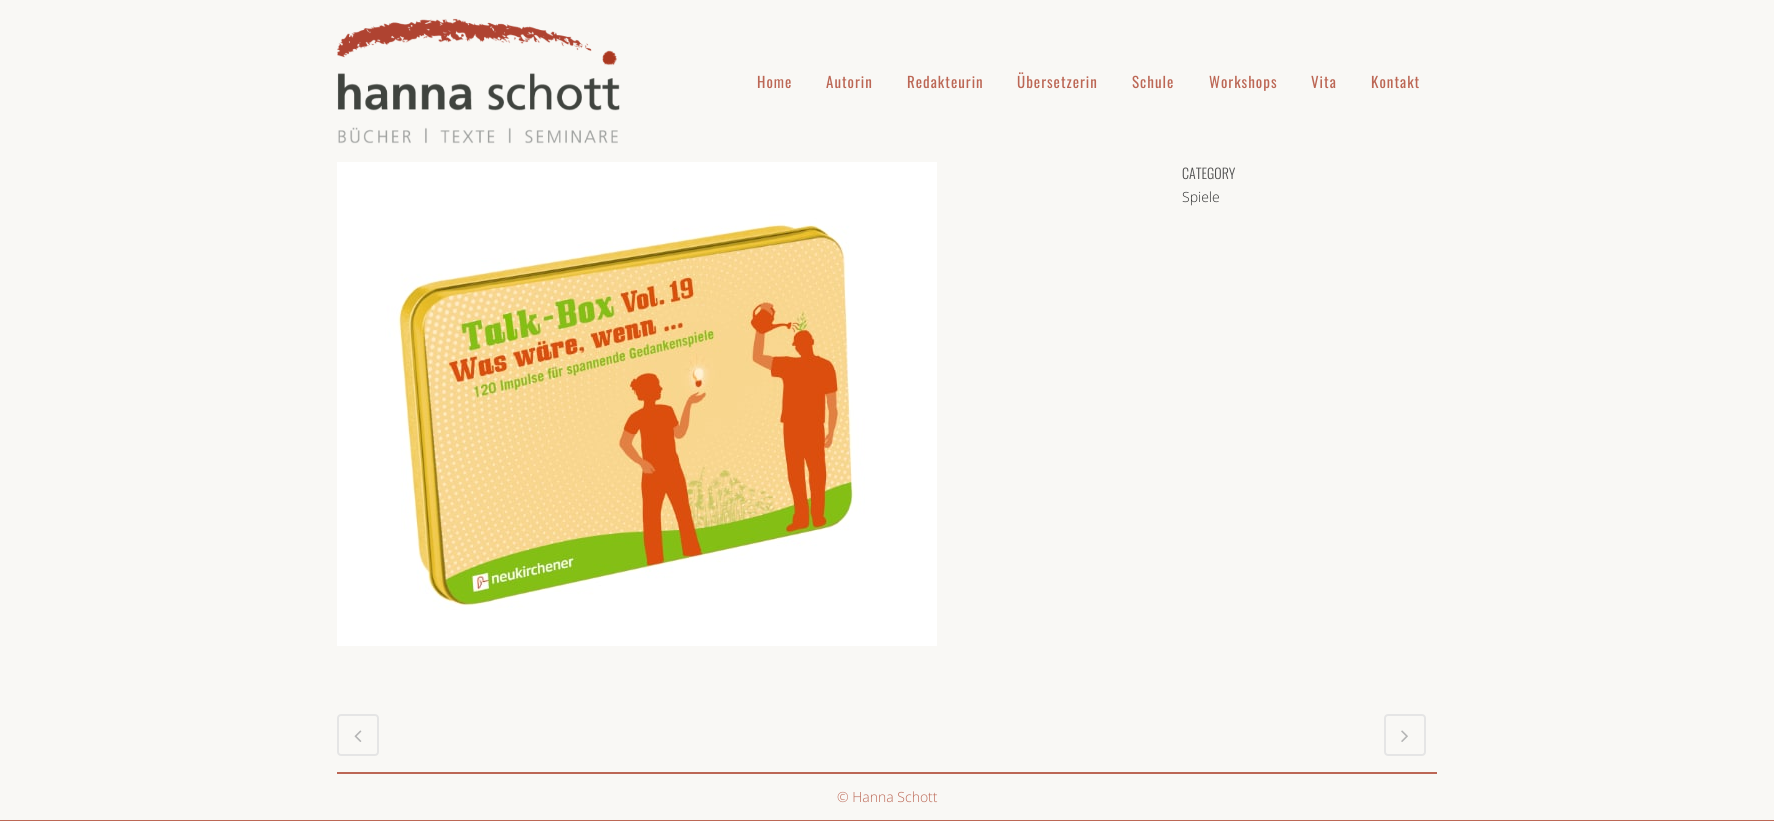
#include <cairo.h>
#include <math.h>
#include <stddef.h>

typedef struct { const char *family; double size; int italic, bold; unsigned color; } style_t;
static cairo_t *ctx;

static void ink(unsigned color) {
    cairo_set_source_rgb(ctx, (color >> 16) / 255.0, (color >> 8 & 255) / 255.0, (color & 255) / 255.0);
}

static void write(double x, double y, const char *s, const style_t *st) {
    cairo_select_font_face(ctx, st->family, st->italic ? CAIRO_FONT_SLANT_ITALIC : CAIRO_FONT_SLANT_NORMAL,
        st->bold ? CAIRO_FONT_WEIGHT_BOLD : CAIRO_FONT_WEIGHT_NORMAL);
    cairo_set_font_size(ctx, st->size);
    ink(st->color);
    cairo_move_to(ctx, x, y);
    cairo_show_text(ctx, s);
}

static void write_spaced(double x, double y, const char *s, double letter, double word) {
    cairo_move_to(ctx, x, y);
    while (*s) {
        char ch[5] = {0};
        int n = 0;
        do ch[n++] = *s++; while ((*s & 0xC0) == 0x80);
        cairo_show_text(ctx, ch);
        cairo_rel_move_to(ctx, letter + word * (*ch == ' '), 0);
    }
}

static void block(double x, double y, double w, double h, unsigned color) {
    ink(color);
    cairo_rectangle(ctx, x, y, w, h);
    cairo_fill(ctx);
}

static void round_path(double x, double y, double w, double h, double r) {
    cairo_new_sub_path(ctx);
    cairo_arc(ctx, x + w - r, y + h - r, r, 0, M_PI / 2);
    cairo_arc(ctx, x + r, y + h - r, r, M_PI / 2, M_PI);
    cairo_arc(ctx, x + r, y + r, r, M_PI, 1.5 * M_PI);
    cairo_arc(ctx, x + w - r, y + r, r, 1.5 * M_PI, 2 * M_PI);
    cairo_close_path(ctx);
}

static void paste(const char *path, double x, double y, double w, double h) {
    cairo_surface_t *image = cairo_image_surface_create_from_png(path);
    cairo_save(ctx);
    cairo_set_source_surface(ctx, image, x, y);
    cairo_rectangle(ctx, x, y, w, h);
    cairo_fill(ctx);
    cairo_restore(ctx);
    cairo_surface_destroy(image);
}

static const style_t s1 = {"Oswald Light", 14, 0, 0, 0x4e4e4e};
static const style_t s2 = {"Open Sans Light", 14, 0, 0, 0x303030};
static const style_t s3 = {"Open Sans Light", 14, 0, 0, 0xbc6755};

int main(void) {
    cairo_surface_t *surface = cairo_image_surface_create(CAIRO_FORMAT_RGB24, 1774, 821);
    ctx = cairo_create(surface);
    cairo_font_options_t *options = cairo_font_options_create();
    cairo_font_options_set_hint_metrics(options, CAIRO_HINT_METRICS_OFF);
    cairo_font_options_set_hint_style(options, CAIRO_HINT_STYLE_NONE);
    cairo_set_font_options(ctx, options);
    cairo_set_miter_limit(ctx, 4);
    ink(0xf9f8f5);
    cairo_paint(ctx);
    paste("pic1.png", 337, 18, 283, 126);
    cairo_select_font_face(ctx, "Oswald", CAIRO_FONT_SLANT_NORMAL, CAIRO_FONT_WEIGHT_NORMAL);
    cairo_set_font_size(ctx, 15);
    ink(0xbc6755);
    write_spaced(757, 88, "Home", 1, 0);
    write_spaced(826, 88, "Autorin", 1, 0);
    write_spaced(907, 88, "Redakteurin", 1, 0);
    write_spaced(1017, 88, "Übersetzerin", 1, 0);
    write_spaced(1132, 88, "Schule", 1, 0);
    write_spaced(1209, 88, "Workshops", 1, 0);
    write_spaced(1311, 88, "Vita", 1, 0);
    write_spaced(1371, 88, "Kontakt", 1, 0);
    paste("pic2.png", 337, 162, 600, 484);
    write(1182, 179, "CATEGORY", &s1);
    write(1182, 202, "Spiele", &s2);
    round_path(338, 715, 40, 40, 3);
    ink(0xe5e5e5);
    cairo_stroke(ctx);
    paste("pic3.png", 354, 730, 8, 12);
    round_path(1385, 715, 40, 40, 3);
    cairo_stroke(ctx);
    paste("pic4.png", 1401, 730, 7, 12);
    block(337, 772, 1100, 2, 0xbc6755);
    write(837, 802, "© Hanna Schott", &s3);
    block(0, 820, 1774, 1, 0xbc6755);
    cairo_surface_write_to_png(surface, "screenshot.png");
    cairo_font_options_destroy(options);
    cairo_destroy(ctx);
    cairo_surface_destroy(surface);
    return 0;
}
